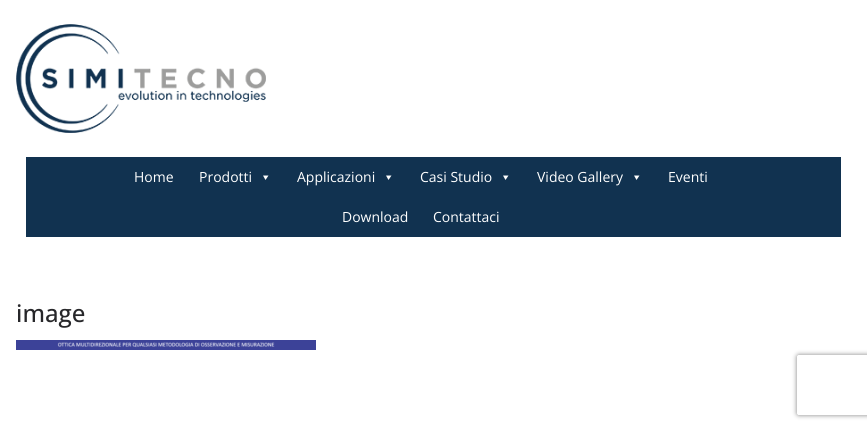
#include <cairo.h>
#include <math.h>
#include <stddef.h>

typedef struct { const char *family; double size; int italic, bold; unsigned color; } style_t;
static cairo_t *ctx;

static void ink(unsigned color) {
    cairo_set_source_rgb(ctx, (color >> 16) / 255.0, (color >> 8 & 255) / 255.0, (color & 255) / 255.0);
}

static void write(double x, double y, const char *s, const style_t *st) {
    cairo_select_font_face(ctx, st->family, st->italic ? CAIRO_FONT_SLANT_ITALIC : CAIRO_FONT_SLANT_NORMAL,
        st->bold ? CAIRO_FONT_WEIGHT_BOLD : CAIRO_FONT_WEIGHT_NORMAL);
    cairo_set_font_size(ctx, st->size);
    ink(st->color);
    cairo_move_to(ctx, x, y);
    cairo_show_text(ctx, s);
}

static void block(double x, double y, double w, double h, unsigned color) {
    ink(color);
    cairo_rectangle(ctx, x, y, w, h);
    cairo_fill(ctx);
}

static void round_path(double x, double y, double w, double h, double r) {
    cairo_new_sub_path(ctx);
    cairo_arc(ctx, x + w - r, y + h - r, r, 0, M_PI / 2);
    cairo_arc(ctx, x + r, y + h - r, r, M_PI / 2, M_PI);
    cairo_arc(ctx, x + r, y + r, r, M_PI, 1.5 * M_PI);
    cairo_arc(ctx, x + w - r, y + r, r, 1.5 * M_PI, 2 * M_PI);
    cairo_close_path(ctx);
}

static void blur_box(double x, double y, double w, double h, double r, double blur, double alpha) {
    cairo_push_group_with_content(ctx, CAIRO_CONTENT_ALPHA);
    cairo_set_operator(ctx, CAIRO_OPERATOR_SOURCE);
    for (int i = 15; i >= -15 && fmin(w, h) + blur * i / 3 > 0; i -= 2) {
        double e = blur * i / 6;
        cairo_set_source_rgba(ctx, 0, 0, 0, alpha * erfc((i - 1) / 8.5) / 2);
        round_path(x - e, y - e, w + 2 * e, h + 2 * e, fmax(0, fmin(r + e + blur * .6, fmin(w, h) / 2 + e)));
        cairo_fill(ctx);
    }
    cairo_pattern_t *soft = cairo_pop_group(ctx);
    cairo_mask(ctx, soft);
    cairo_pattern_destroy(soft);
}

static void paste(const char *path, double x, double y, double w, double h) {
    cairo_surface_t *image = cairo_image_surface_create_from_png(path);
    cairo_save(ctx);
    cairo_set_source_surface(ctx, image, x, y);
    cairo_rectangle(ctx, x, y, w, h);
    cairo_fill(ctx);
    cairo_restore(ctx);
    cairo_surface_destroy(image);
}

static const style_t s1 = {"Open Sans", 14, 0, 0, 0xffffff};
static const style_t s2 = {"Open Sans Medium", 24, 0, 0, 0x27272a};

int main(void) {
    cairo_surface_t *surface = cairo_image_surface_create(CAIRO_FORMAT_RGB24, 867, 429);
    ctx = cairo_create(surface);
    cairo_font_options_t *options = cairo_font_options_create();
    cairo_font_options_set_hint_metrics(options, CAIRO_HINT_METRICS_OFF);
    cairo_font_options_set_hint_style(options, CAIRO_HINT_STYLE_NONE);
    cairo_set_font_options(ctx, options);
    cairo_set_miter_limit(ctx, 4);
    ink(0xffffff);
    cairo_paint(ctx);
    paste("pic1.png", 16, 24, 250, 109);
    block(26, 157, 815, 80, 0x113250);
    write(134, 182, "Home", &s1);
    write(199, 182, "Prodotti", &s1);
    cairo_new_path(ctx);
    cairo_move_to(ctx, 268.5, 175.5);
    cairo_line_to(ctx, 265.5, 180);
    cairo_line_to(ctx, 263, 175.5);
    cairo_close_path(ctx);
    cairo_fill(ctx);
    write(297, 182, "Applicazioni", &s1);
    cairo_new_path(ctx);
    cairo_move_to(ctx, 391.5, 175.5);
    cairo_line_to(ctx, 388.5, 180);
    cairo_line_to(ctx, 386, 175.5);
    cairo_close_path(ctx);
    cairo_fill(ctx);
    write(420, 182, "Casi Studio", &s1);
    cairo_new_path(ctx);
    cairo_move_to(ctx, 508.5, 175.5);
    cairo_line_to(ctx, 505.5, 180);
    cairo_line_to(ctx, 503, 175.5);
    cairo_close_path(ctx);
    cairo_fill(ctx);
    write(537, 182, "Video Gallery", &s1);
    cairo_new_path(ctx);
    cairo_move_to(ctx, 639.5, 175.5);
    cairo_line_to(ctx, 636.5, 180);
    cairo_line_to(ctx, 634, 175.5);
    cairo_close_path(ctx);
    cairo_fill(ctx);
    write(668, 182, "Eventi", &s1);
    write(342, 222, "Download", &s1);
    write(433, 222, "Contattaci", &s1);
    write(16, 322, "image", &s2);
    paste("pic2.png", 16, 340, 300, 10);
    cairo_save(ctx);
    cairo_set_fill_rule(ctx, CAIRO_FILL_RULE_EVEN_ODD);
    cairo_new_path(ctx);
    cairo_move_to(ctx, 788, 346);
    cairo_line_to(ctx, 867, 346);
    cairo_line_to(ctx, 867, 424);
    cairo_line_to(ctx, 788, 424);
    cairo_close_path(ctx);
    cairo_move_to(ctx, 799, 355);
    cairo_line_to(ctx, 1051, 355);
    cairo_curve_to(ctx, 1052, 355, 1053, 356, 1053, 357);
    cairo_line_to(ctx, 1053, 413);
    cairo_curve_to(ctx, 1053, 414, 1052, 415, 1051, 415);
    cairo_line_to(ctx, 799, 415);
    cairo_curve_to(ctx, 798, 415, 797, 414, 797, 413);
    cairo_line_to(ctx, 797, 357);
    cairo_curve_to(ctx, 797, 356, 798, 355, 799, 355);
    cairo_close_path(ctx);
    cairo_clip(ctx);
    ink(0x808080);
    blur_box(797, 355, 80, 60, 2, 2.5, 1);
    cairo_restore(ctx);
    cairo_surface_write_to_png(surface, "screenshot.png");
    cairo_font_options_destroy(options);
    cairo_destroy(ctx);
    cairo_surface_destroy(surface);
    return 0;
}
